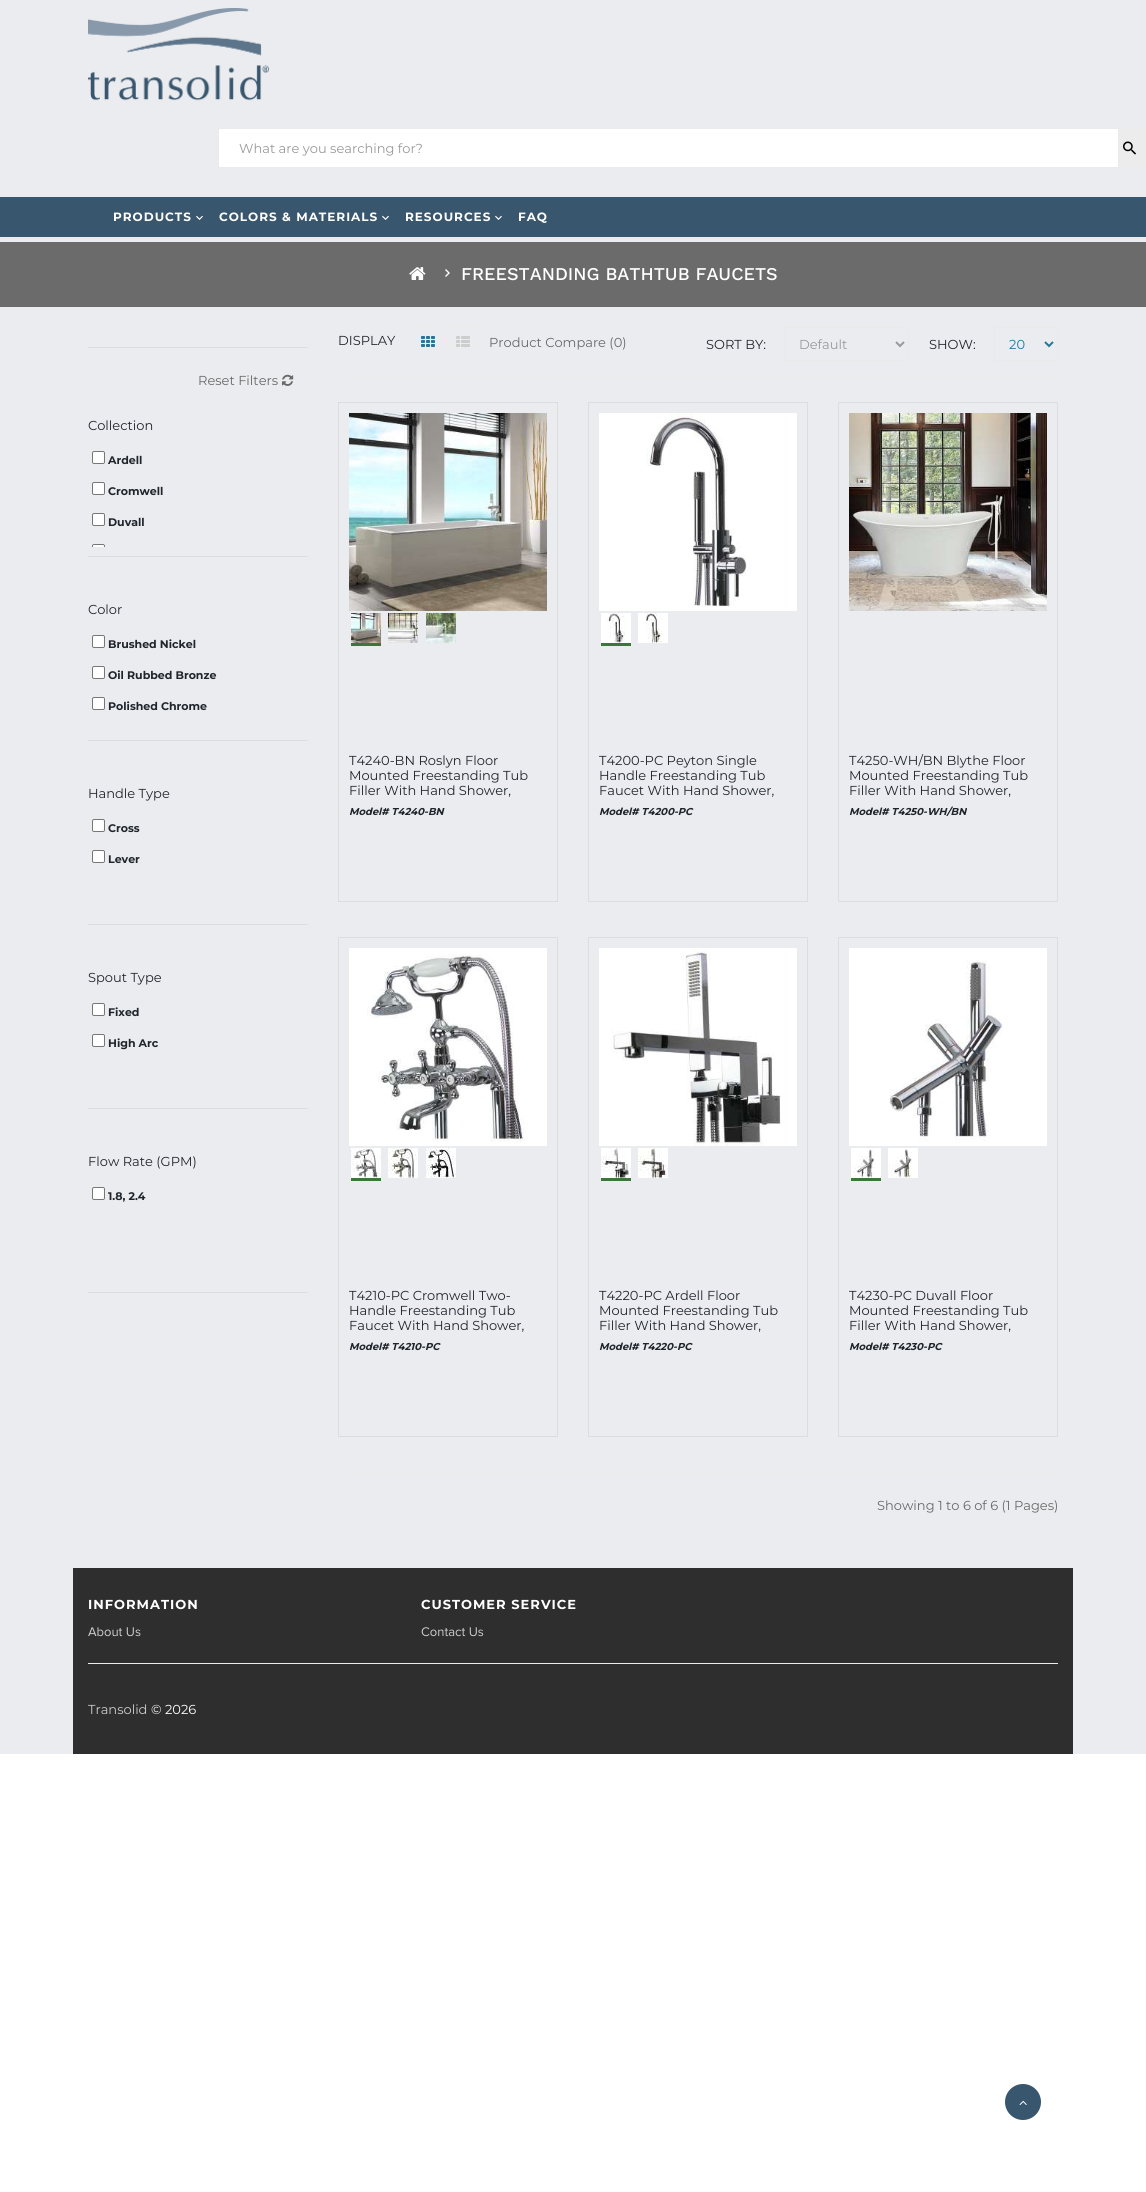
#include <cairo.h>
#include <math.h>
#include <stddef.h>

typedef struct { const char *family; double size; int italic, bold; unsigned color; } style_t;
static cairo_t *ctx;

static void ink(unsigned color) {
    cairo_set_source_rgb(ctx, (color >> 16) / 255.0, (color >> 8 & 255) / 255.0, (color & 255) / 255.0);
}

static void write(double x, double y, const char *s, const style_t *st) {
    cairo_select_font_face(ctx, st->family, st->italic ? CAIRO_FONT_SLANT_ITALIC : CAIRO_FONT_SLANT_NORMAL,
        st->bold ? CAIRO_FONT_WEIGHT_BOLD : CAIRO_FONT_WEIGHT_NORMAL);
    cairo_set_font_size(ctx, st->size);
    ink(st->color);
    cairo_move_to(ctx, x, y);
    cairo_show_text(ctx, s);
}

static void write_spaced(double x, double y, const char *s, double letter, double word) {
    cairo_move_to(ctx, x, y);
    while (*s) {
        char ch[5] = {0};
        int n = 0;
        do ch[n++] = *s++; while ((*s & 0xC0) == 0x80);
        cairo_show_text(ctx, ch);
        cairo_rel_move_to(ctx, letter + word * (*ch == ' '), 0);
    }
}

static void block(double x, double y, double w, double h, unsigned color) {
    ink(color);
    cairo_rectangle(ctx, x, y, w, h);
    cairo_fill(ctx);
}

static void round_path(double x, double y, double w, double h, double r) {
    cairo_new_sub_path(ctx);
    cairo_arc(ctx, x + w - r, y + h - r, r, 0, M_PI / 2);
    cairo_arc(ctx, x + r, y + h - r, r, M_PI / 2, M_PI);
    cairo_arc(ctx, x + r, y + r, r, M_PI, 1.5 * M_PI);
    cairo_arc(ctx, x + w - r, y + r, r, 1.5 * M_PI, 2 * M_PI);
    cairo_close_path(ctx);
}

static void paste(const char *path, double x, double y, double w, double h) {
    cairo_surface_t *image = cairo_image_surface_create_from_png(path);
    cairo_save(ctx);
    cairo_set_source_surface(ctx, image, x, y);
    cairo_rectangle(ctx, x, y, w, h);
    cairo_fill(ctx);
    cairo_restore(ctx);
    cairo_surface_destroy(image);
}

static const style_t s1 = {"Montserrat", 13, 0, 0, 0x999999};
static const style_t s2 = {"Work Sans Medium", 18, 0, 0, 0xffffff};
static const style_t s3 = {"Montserrat", 13, 0, 0, 0x696969};
static const style_t s4 = {"Montserrat", 13, 0, 0, 0x1f252b};
static const style_t s5 = {"Montserrat", 11, 0, 1, 0x1f252b};
static const style_t s6 = {"Montserrat", 13, 0, 0, 0x257699};
static const style_t s7 = {"Montserrat", 10, 1, 1, 0x1f252b};
static const style_t s8 = {"Proxima Nova", 13, 0, 0, 0xcccccc};
static const style_t s9 = {"Montserrat", 13, 0, 0, 0xcccccc};
static const style_t s10 = {"Montserrat", 13, 0, 0, 0xffffff};

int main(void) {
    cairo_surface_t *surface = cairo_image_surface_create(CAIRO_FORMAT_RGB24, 1146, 2192);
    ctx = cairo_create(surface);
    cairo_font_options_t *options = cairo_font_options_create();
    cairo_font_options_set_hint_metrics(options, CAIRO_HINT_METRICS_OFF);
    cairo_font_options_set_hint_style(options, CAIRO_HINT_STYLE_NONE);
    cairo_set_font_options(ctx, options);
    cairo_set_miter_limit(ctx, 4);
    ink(0xffffff);
    cairo_paint(ctx);
    block(0, 0, 1146, 1754, 0xebecf0);
    paste("pic1.png", 88, 8, 182, 93);
    ink(0xffffff);
    cairo_rectangle(ctx, 218.5, 128.5, 900, 39);
    cairo_fill_preserve(ctx);
    ink(0xeaeaea);
    cairo_set_line_width(ctx, 1);
    cairo_stroke(ctx);
    write(239, 153, "What are you searching for?", &s1);
    block(1119, 128, 27, 40, 0xececec);
    paste("pic2.png", 1123, 141, 13, 14);
    block(0, 197, 1146, 40, 0x38566e);
    cairo_select_font_face(ctx, "Montserrat", CAIRO_FONT_SLANT_NORMAL, CAIRO_FONT_WEIGHT_BOLD);
    cairo_set_font_size(ctx, 12);
    ink(0xffffff);
    write_spaced(113, 221, "PRODUCTS", 1, 0);
    paste("pic3.png", 196, 215, 7, 5);
    write_spaced(219, 221, "COLORS & MATERIALS", 1, 0);
    paste("pic3.png", 382, 215, 7, 5);
    write_spaced(405, 221, "RESOURCES", 1, 0);
    paste("pic3.png", 495, 215, 7, 5);
    write_spaced(518, 221, "FAQ", 1, 0);
    block(0, 242, 1146, 65, 0x6b6b6b);
    paste("pic4.png", 409, 267, 17, 13);
    paste("pic5.png", 445, 269, 5, 8);
    write(461, 280, "FREESTANDING BATHTUB FAUCETS", &s2);
    block(88, 347, 220, 1, 0xdddddd);
    write(198, 385, "Reset Filters", &s3);
    paste("pic6.png", 282, 374, 12, 12);
    write(88, 430, "Collection", &s4);
    ink(0xffffff);
    round_path(92.5, 451.5, 12, 12, 1.5);
    cairo_fill_preserve(ctx);
    ink(0x767676);
    cairo_stroke(ctx);
    write(108, 464, "Ardell", &s5);
    ink(0xffffff);
    round_path(92.5, 482.5, 12, 12, 1.5);
    cairo_fill_preserve(ctx);
    ink(0x767676);
    cairo_stroke(ctx);
    write(108, 495, "Cromwell", &s5);
    ink(0xffffff);
    round_path(92.5, 513.5, 12, 12, 1.5);
    cairo_fill_preserve(ctx);
    ink(0x767676);
    cairo_stroke(ctx);
    write(108, 526, "Duvall", &s5);
    ink(0xffffff);
    cairo_new_path(ctx);
    cairo_move_to(ctx, 94, 544);
    cairo_line_to(ctx, 103, 544);
    cairo_curve_to(ctx, 104, 544, 105, 545, 105, 546);
    cairo_line_to(ctx, 105, 547);
    cairo_line_to(ctx, 92, 547);
    cairo_line_to(ctx, 92, 546);
    cairo_curve_to(ctx, 92, 545, 93, 544, 94, 544);
    cairo_close_path(ctx);
    cairo_fill(ctx);
    block(88, 556, 220, 1, 0xdddddd);
    cairo_save(ctx);
    cairo_rectangle(ctx, 88, 447, 220, 100);
    cairo_clip(ctx);
    round_path(92.5, 544.5, 12, 12, 1.5);
    ink(0x767676);
    cairo_stroke(ctx);
    cairo_restore(ctx);
    write(88, 614, "Color", &s4);
    ink(0xffffff);
    round_path(92.5, 635.5, 12, 12, 1.5);
    cairo_fill_preserve(ctx);
    ink(0x767676);
    cairo_stroke(ctx);
    write(108, 648, "Brushed Nickel", &s5);
    ink(0xffffff);
    round_path(92.5, 666.5, 12, 12, 1.5);
    cairo_fill_preserve(ctx);
    ink(0x767676);
    cairo_stroke(ctx);
    write(108, 679, "Oil Rubbed Bronze", &s5);
    ink(0xffffff);
    round_path(92.5, 697.5, 12, 12, 1.5);
    cairo_fill_preserve(ctx);
    ink(0x767676);
    cairo_stroke(ctx);
    write(108, 710, "Polished Chrome", &s5);
    block(88, 740, 220, 1, 0xdddddd);
    write(88, 798, "Handle Type", &s4);
    ink(0xffffff);
    round_path(92.5, 819.5, 12, 12, 1.5);
    cairo_fill_preserve(ctx);
    ink(0x767676);
    cairo_stroke(ctx);
    write(108, 832, "Cross", &s5);
    ink(0xffffff);
    round_path(92.5, 850.5, 12, 12, 1.5);
    cairo_fill_preserve(ctx);
    ink(0x767676);
    cairo_stroke(ctx);
    write(108, 863, "Lever", &s5);
    block(88, 924, 220, 1, 0xdddddd);
    write(88, 982, "Spout Type", &s4);
    ink(0xffffff);
    round_path(92.5, 1003.5, 12, 12, 1.5);
    cairo_fill_preserve(ctx);
    ink(0x767676);
    cairo_stroke(ctx);
    write(108, 1016, "Fixed", &s5);
    ink(0xffffff);
    round_path(92.5, 1034.5, 12, 12, 1.5);
    cairo_fill_preserve(ctx);
    ink(0x767676);
    cairo_stroke(ctx);
    write(108, 1047, "High Arc", &s5);
    block(88, 1108, 220, 1, 0xdddddd);
    write(88, 1166, "Flow Rate (GPM)", &s4);
    ink(0xffffff);
    round_path(92.5, 1187.5, 12, 12, 1.5);
    cairo_fill_preserve(ctx);
    ink(0x767676);
    cairo_stroke(ctx);
    write(108, 1200, "1.8, 2.4", &s5);
    block(88, 1292, 220, 1, 0xdddddd);
    block(338, 376, 720, 1, 0xececec);
    write(338, 345, "DISPLAY", &s4);
    cairo_rectangle(ctx, 414.5, 327.5, 29, 29);
    ink(0xebebeb);
    cairo_stroke(ctx);
    paste("pic7.png", 421, 336, 14, 11);
    cairo_rectangle(ctx, 449.5, 327.5, 29, 29);
    cairo_stroke(ctx);
    paste("pic8.png", 456, 336, 14, 11);
    write(489, 347, "Product Compare (0)", &s3);
    write(706, 349, "SORT BY:", &s4);
    cairo_rectangle(ctx, 784.5, 327.5, 124, 33);
    ink(0xeaeaea);
    cairo_stroke(ctx);
    cairo_new_path(ctx);
    cairo_move_to(ctx, 896, 342);
    cairo_line_to(ctx, 900, 346);
    cairo_line_to(ctx, 904, 342);
    ink(0x999999);
    cairo_set_line_width(ctx, 2);
    cairo_stroke(ctx);
    write(799, 349, "Default", &s1);
    write(929, 349, "SHOW:", &s4);
    cairo_rectangle(ctx, 994.5, 327.5, 63, 33);
    ink(0xeaeaea);
    cairo_set_line_width(ctx, 1);
    cairo_stroke(ctx);
    cairo_new_path(ctx);
    cairo_move_to(ctx, 1045, 342);
    cairo_line_to(ctx, 1049, 346);
    cairo_line_to(ctx, 1053, 342);
    ink(0x257699);
    cairo_set_line_width(ctx, 2);
    cairo_stroke(ctx);
    write(1009, 349, "20", &s6);
    cairo_rectangle(ctx, 338.5, 402.5, 219, 499);
    ink(0xdddddd);
    cairo_set_line_width(ctx, 1);
    cairo_stroke(ctx);
    paste("pic9.png", 349, 413, 198, 198);
    block(351, 643, 30, 3, 0x3c763d);
    paste("pic10.png", 351, 613, 30, 30);
    paste("pic11.png", 388, 613, 30, 30);
    paste("pic12.png", 426, 613, 30, 30);
    write(349, 765, "T4240-BN Roslyn Floor", &s4);
    write(349, 780, "Mounted Freestanding Tub", &s4);
    write(349, 795, "Filler With Hand Shower,", &s4);
    write(349, 815, "Model# T4240-BN", &s7);
    cairo_rectangle(ctx, 588.5, 402.5, 219, 499);
    ink(0xdddddd);
    cairo_stroke(ctx);
    paste("pic13.png", 599, 413, 198, 198);
    block(601, 643, 30, 3, 0x3c763d);
    paste("pic14.png", 601, 613, 30, 30);
    paste("pic15.png", 638, 613, 30, 30);
    write(599, 765, "T4200-PC Peyton Single", &s4);
    write(599, 780, "Handle Freestanding Tub", &s4);
    write(599, 795, "Faucet With Hand Shower,", &s4);
    write(599, 815, "Model# T4200-PC", &s7);
    cairo_rectangle(ctx, 838.5, 402.5, 219, 499);
    ink(0xdddddd);
    cairo_stroke(ctx);
    paste("pic16.png", 849, 413, 198, 198);
    write(849, 765, "T4250-WH/BN Blythe Floor", &s4);
    write(849, 780, "Mounted Freestanding Tub", &s4);
    write(849, 795, "Filler With Hand Shower,", &s4);
    write(849, 815, "Model# T4250-WH/BN", &s7);
    cairo_rectangle(ctx, 338.5, 937.5, 219, 499);
    ink(0xdddddd);
    cairo_stroke(ctx);
    paste("pic17.png", 349, 948, 198, 198);
    block(351, 1178, 30, 3, 0x3c763d);
    paste("pic18.png", 351, 1148, 30, 30);
    paste("pic19.png", 388, 1148, 30, 30);
    paste("pic20.png", 426, 1148, 30, 30);
    write(349, 1300, "T4210-PC Cromwell Two-", &s4);
    write(349, 1315, "Handle Freestanding Tub", &s4);
    write(349, 1330, "Faucet With Hand Shower,", &s4);
    write(349, 1350, "Model# T4210-PC", &s7);
    cairo_rectangle(ctx, 588.5, 937.5, 219, 499);
    ink(0xdddddd);
    cairo_stroke(ctx);
    paste("pic21.png", 599, 948, 198, 198);
    block(601, 1178, 30, 3, 0x3c763d);
    paste("pic22.png", 601, 1148, 30, 30);
    paste("pic23.png", 638, 1148, 30, 30);
    write(599, 1300, "T4220-PC Ardell Floor", &s4);
    write(599, 1315, "Mounted Freestanding Tub", &s4);
    write(599, 1330, "Filler With Hand Shower,", &s4);
    write(599, 1350, "Model# T4220-PC", &s7);
    cairo_rectangle(ctx, 838.5, 937.5, 219, 499);
    ink(0xdddddd);
    cairo_stroke(ctx);
    paste("pic24.png", 849, 948, 198, 198);
    block(851, 1178, 30, 3, 0x3c763d);
    paste("pic25.png", 851, 1148, 30, 30);
    paste("pic26.png", 888, 1148, 30, 30);
    write(849, 1300, "T4230-PC Duvall Floor", &s4);
    write(849, 1315, "Mounted Freestanding Tub", &s4);
    write(849, 1330, "Filler With Hand Shower,", &s4);
    write(849, 1350, "Model# T4230-PC", &s7);
    block(338, 1472, 720, 1, 0xececec);
    write(877, 1510, "Showing 1 to 6 of 6 (1 Pages)", &s3);
    block(73, 1568, 1000, 186, 0x2e2e2e);
    cairo_select_font_face(ctx, "Montserrat", CAIRO_FONT_SLANT_NORMAL, CAIRO_FONT_WEIGHT_BOLD);
    ink(0xffffff);
    write_spaced(88, 1609, "INFORMATION", 1, 0);
    write(88, 1636, "About Us", &s8);
    cairo_select_font_face(ctx, "Montserrat", CAIRO_FONT_SLANT_NORMAL, CAIRO_FONT_WEIGHT_BOLD);
    ink(0xffffff);
    write_spaced(421, 1609, "CUSTOMER SERVICE", 1, 0);
    write(421, 1636, "Contact Us", &s8);
    block(88, 1663, 970, 1, 0xececec);
    write(88, 1714, "Transolid", &s9);
    write(151, 1714, "© 2026", &s10);
    ink(0x38566e);
    cairo_new_path(ctx);
    cairo_arc(ctx, 1023, 2102, 18, 0, 2 * M_PI);
    cairo_fill(ctx);
    paste("pic27.png", 1019, 2100, 8, 5);
    cairo_surface_write_to_png(surface, "screenshot.png");
    cairo_font_options_destroy(options);
    cairo_destroy(ctx);
    cairo_surface_destroy(surface);
    return 0;
}
